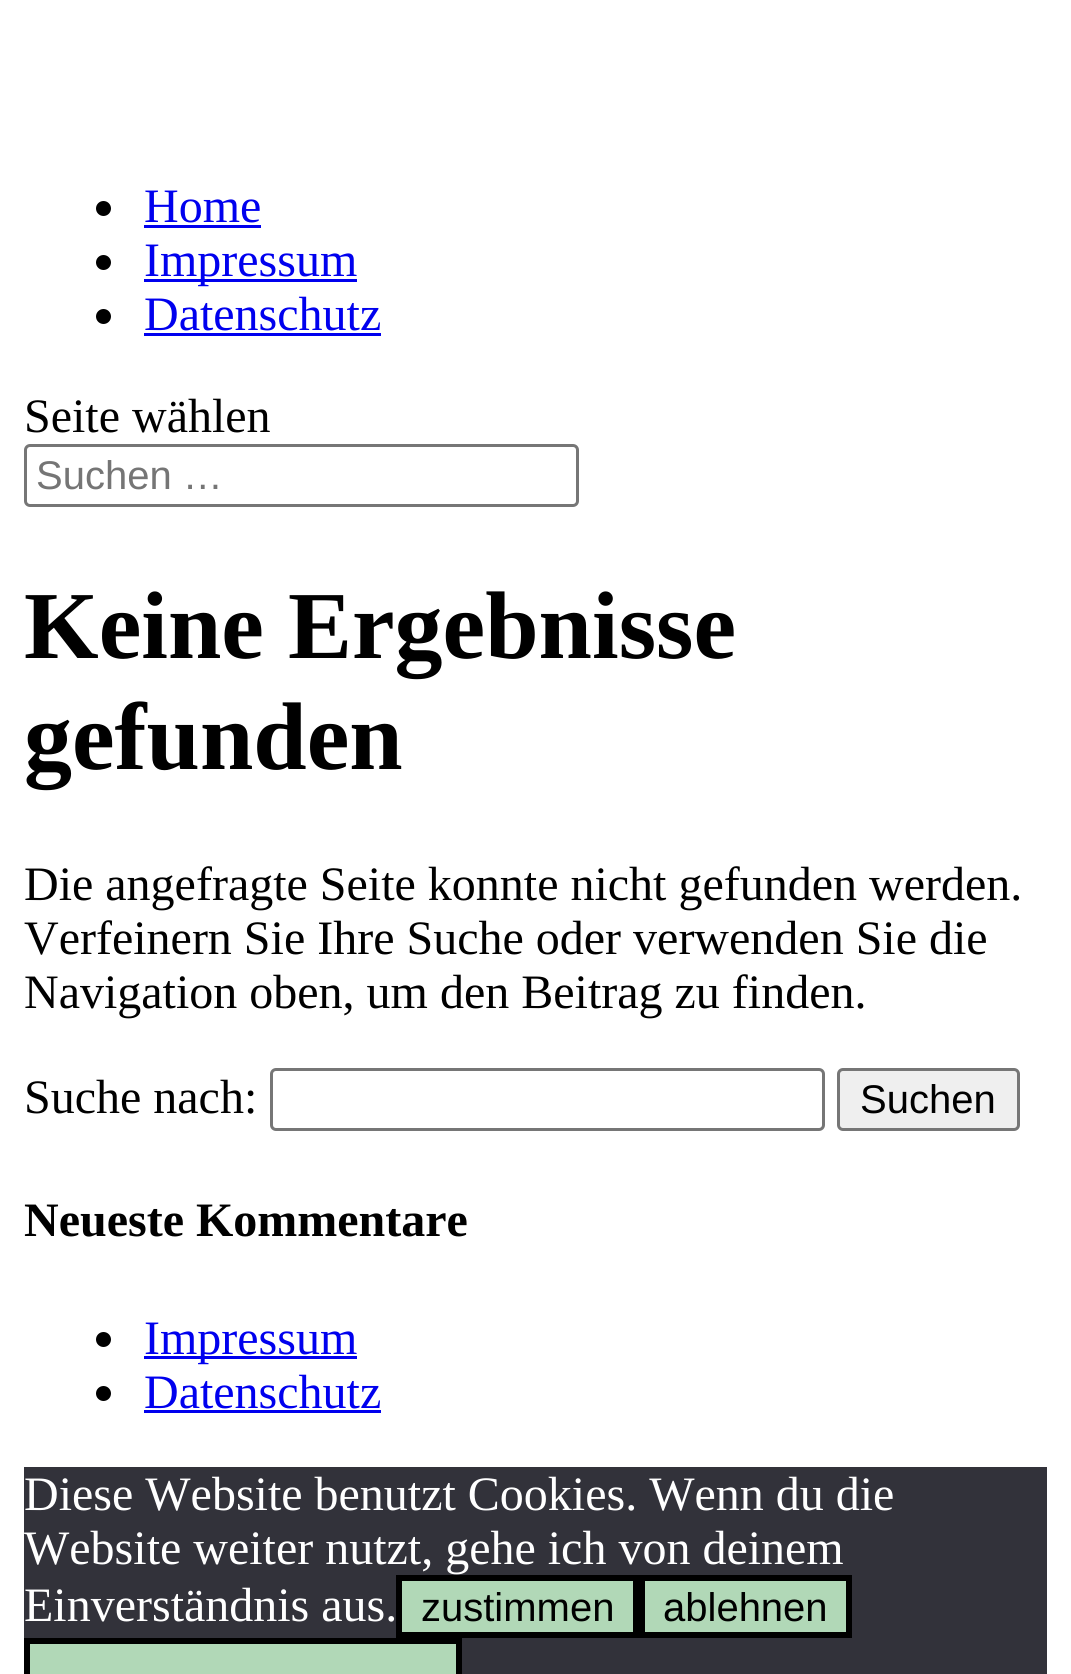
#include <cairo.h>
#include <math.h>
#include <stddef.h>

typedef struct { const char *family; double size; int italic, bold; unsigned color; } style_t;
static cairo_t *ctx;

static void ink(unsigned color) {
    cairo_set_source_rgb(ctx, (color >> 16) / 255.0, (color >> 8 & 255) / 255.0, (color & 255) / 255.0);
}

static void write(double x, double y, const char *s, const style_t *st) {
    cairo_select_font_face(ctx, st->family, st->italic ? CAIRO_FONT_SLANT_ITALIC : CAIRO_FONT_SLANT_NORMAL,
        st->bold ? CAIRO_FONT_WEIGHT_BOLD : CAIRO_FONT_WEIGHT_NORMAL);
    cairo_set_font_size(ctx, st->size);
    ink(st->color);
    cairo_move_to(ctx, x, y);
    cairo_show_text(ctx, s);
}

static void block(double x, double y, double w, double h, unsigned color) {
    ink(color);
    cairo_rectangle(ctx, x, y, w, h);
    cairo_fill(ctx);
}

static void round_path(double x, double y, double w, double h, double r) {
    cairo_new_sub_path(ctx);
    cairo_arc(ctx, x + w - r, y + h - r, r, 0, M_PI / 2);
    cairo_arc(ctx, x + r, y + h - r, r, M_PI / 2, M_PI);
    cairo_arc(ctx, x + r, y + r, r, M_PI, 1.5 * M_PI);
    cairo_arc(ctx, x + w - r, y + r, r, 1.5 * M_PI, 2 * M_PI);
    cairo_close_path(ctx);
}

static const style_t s1 = {"Liberation Serif", 48, 0, 0, 0x0000ee};
static const style_t s2 = {"Liberation Serif", 48, 0, 0, 0x000000};
static const style_t s3 = {"Liberation Sans", 40, 0, 0, 0x757575};
static const style_t s4 = {"Liberation Serif", 96, 0, 1, 0x000000};
static const style_t s5 = {"Liberation Sans", 40, 0, 0, 0x000000};
static const style_t s6 = {"Liberation Serif", 48, 0, 1, 0x000000};
static const style_t s7 = {"Liberation Serif", 48, 0, 0, 0xffffff};

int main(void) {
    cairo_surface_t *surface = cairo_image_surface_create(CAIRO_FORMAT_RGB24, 1071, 1674);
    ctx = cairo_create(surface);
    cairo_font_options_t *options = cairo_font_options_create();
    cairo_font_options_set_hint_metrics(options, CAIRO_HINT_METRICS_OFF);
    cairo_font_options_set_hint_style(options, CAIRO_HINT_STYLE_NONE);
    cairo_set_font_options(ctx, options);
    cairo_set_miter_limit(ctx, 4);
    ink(0xffffff);
    cairo_paint(ctx);
    ink(0x000000);
    cairo_arc(ctx, 103.5, 208.5, 7.5, 0, 2 * M_PI);
    cairo_fill(ctx);
    write(144, 222, "Home", &s1);
    block(144, 225, 117, 3, 0x0000ee);
    ink(0x000000);
    cairo_new_path(ctx);
    cairo_arc(ctx, 103.5, 262.5, 7.5, 0, 2 * M_PI);
    cairo_fill(ctx);
    block(144, 279, 213, 3, 0x0000ee);
    write(144, 276, "Impressum", &s1);
    ink(0x000000);
    cairo_new_path(ctx);
    cairo_arc(ctx, 103.5, 316.5, 7.5, 0, 2 * M_PI);
    cairo_fill(ctx);
    write(144, 330, "Datenschutz", &s1);
    block(144, 333, 237, 3, 0x0000ee);
    write(24, 432, "Seite wählen", &s2);
    round_path(25.5, 445.5, 552, 60, 4.5);
    ink(0x767676);
    cairo_set_line_width(ctx, 3);
    cairo_stroke(ctx);
    write(36, 489, "Suchen …", &s3);
    write(24, 658, "Keine Ergebnisse", &s4);
    write(24, 769, "gefunden", &s4);
    write(24, 900, "Die angefragte Seite konnte nicht gefunden werden.", &s2);
    write(24, 954, "Verfeinern Sie Ihre Suche oder verwenden Sie die", &s2);
    write(24, 1008, "Navigation oben, um den Beitrag zu finden.", &s2);
    write(24, 1113, "Suche nach:", &s2);
    round_path(271.5, 1069.5, 552, 60, 4.5);
    ink(0x767676);
    cairo_stroke(ctx);
    ink(0xefefef);
    round_path(838.5, 1069.5, 180, 60, 4.5);
    cairo_fill_preserve(ctx);
    ink(0x767676);
    cairo_stroke(ctx);
    write(860, 1113, "Suchen", &s5);
    write(24, 1236, "Neueste Kommentare", &s6);
    cairo_new_path(ctx);
    cairo_arc(ctx, 103.5, 1339.5, 7.5, 0, 2 * M_PI);
    cairo_fill(ctx);
    block(144, 1356, 213, 3, 0x0000ee);
    write(144, 1354, "Impressum", &s1);
    ink(0x000000);
    cairo_new_path(ctx);
    cairo_arc(ctx, 103.5, 1393.5, 7.5, 0, 2 * M_PI);
    cairo_fill(ctx);
    write(144, 1408, "Datenschutz", &s1);
    block(144, 1410, 237, 3, 0x0000ee);
    block(24, 1467, 1023, 207, 0x32323a);
    write(24, 1510, "Diese Website benutzt Cookies. Wenn du die", &s7);
    write(24, 1564, "Website weiter nutzt, gehe ich von deinem", &s7);
    write(24, 1621, "Einverständnis aus.", &s7);
    ink(0xb1d8b7);
    cairo_rectangle(ctx, 399, 1578, 237, 57);
    cairo_fill_preserve(ctx);
    ink(0x000000);
    cairo_set_line_width(ctx, 6);
    cairo_stroke(ctx);
    write(421, 1621, "zustimmen", &s5);
    ink(0xb1d8b7);
    cairo_rectangle(ctx, 642, 1578, 207, 57);
    cairo_fill_preserve(ctx);
    ink(0x000000);
    cairo_stroke(ctx);
    write(663, 1621, "ablehnen", &s5);
    ink(0xb1d8b7);
    cairo_rectangle(ctx, 27, 1641, 432, 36);
    cairo_fill_preserve(ctx);
    ink(0x000000);
    cairo_stroke(ctx);
    cairo_surface_write_to_png(surface, "screenshot.png");
    cairo_font_options_destroy(options);
    cairo_destroy(ctx);
    cairo_surface_destroy(surface);
    return 0;
}
